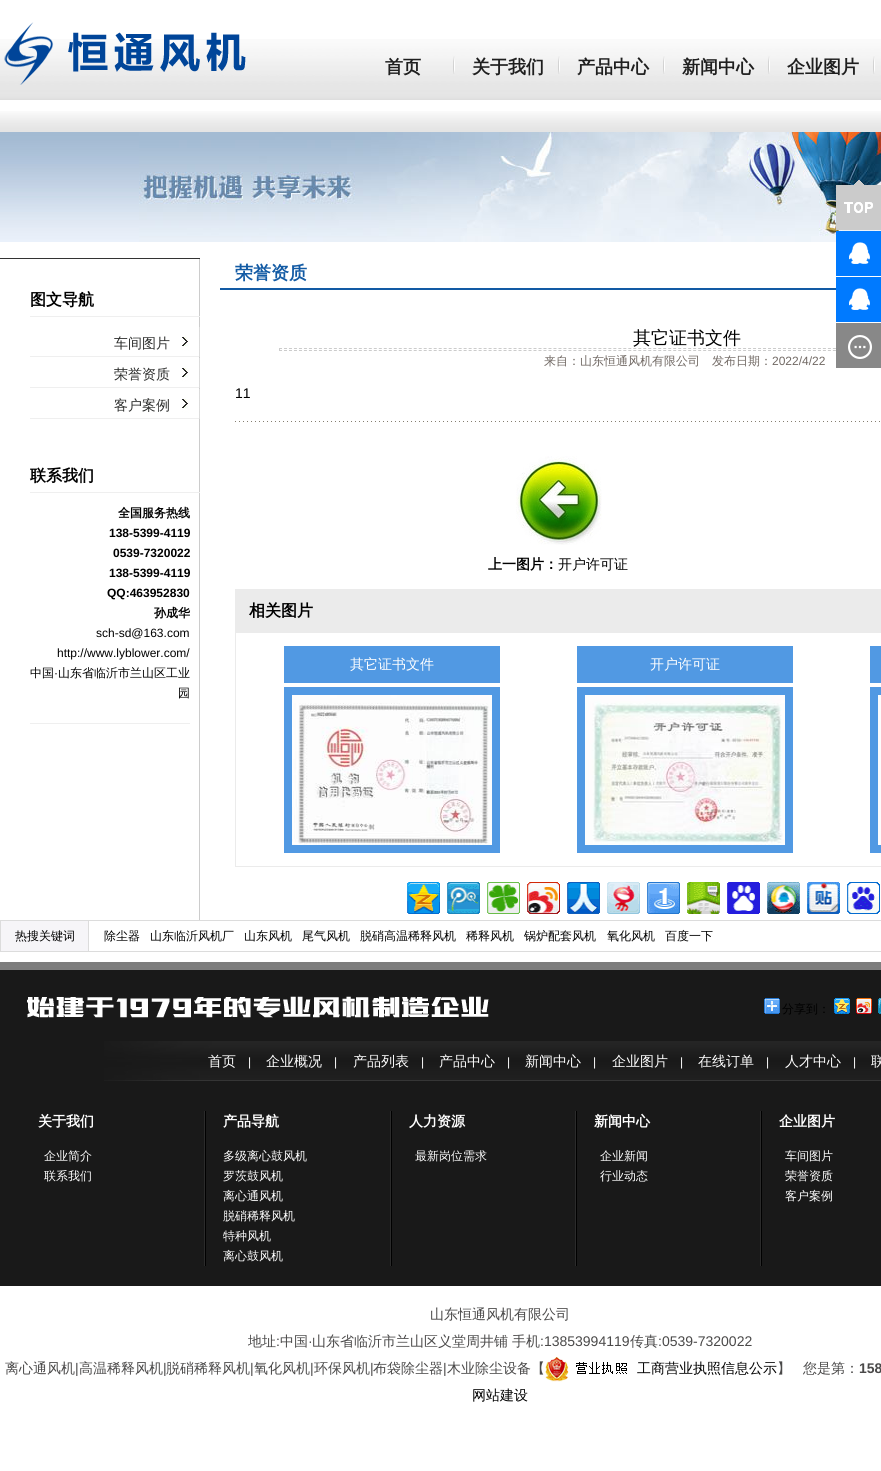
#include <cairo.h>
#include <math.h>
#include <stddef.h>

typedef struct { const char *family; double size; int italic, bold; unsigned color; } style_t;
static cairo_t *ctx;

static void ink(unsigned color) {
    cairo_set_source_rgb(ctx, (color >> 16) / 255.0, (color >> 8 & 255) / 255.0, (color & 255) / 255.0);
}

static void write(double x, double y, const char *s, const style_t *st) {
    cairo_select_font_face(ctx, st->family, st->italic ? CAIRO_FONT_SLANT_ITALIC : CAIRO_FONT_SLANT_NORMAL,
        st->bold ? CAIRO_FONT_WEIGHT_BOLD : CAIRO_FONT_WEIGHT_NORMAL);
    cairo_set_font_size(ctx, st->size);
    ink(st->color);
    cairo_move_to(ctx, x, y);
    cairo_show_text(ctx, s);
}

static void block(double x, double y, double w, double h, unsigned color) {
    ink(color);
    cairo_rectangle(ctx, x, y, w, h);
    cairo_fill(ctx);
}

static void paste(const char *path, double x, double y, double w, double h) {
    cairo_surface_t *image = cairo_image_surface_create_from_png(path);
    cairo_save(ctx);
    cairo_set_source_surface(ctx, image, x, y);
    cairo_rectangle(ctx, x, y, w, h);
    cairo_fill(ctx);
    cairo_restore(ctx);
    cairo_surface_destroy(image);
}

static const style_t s1 = {"WenQuanYi Zen Hei", 18, 0, 1, 0x1f1f1f};
static const style_t s2 = {"WenQuanYi Zen Hei", 16, 0, 1, 0x000000};
static const style_t s3 = {"WenQuanYi Zen Hei Medium", 14, 0, 0, 0x2c2d2c};
static const style_t s4 = {"WenQuanYi Zen Hei", 12, 0, 1, 0x000000};
static const style_t s5 = {"Liberation Sans", 12, 0, 1, 0x000000};
static const style_t s6 = {"Liberation Sans", 12, 0, 0, 0x000000};
static const style_t s7 = {"WenQuanYi Zen Hei Medium", 12, 0, 0, 0x000000};
static const style_t s8 = {"WenQuanYi Zen Hei", 18, 0, 1, 0x125aa4};
static const style_t s9 = {"WenQuanYi Zen Hei Medium", 18, 0, 0, 0x000000};
static const style_t s10 = {"WenQuanYi Zen Hei Medium", 12, 0, 0, 0x716964};
static const style_t s11 = {"Liberation Sans", 12, 0, 0, 0x716964};
static const style_t s12 = {"Liberation Sans", 14, 0, 0, 0x000000};
static const style_t s13 = {"WenQuanYi Zen Hei", 14, 0, 1, 0x000000};
static const style_t s14 = {"WenQuanYi Zen Hei Medium", 14, 0, 0, 0x000000};
static const style_t s15 = {"WenQuanYi Zen Hei Medium", 14, 0, 0, 0xffffff};
static const style_t s16 = {"Liberation Sans", 12, 0, 0, 0xffffff};
static const style_t s17 = {"WenQuanYi Zen Hei", 14, 0, 1, 0xffffff};
static const style_t s18 = {"WenQuanYi Zen Hei Medium", 12, 0, 0, 0xffffff};
static const style_t s19 = {"WenQuanYi Zen Hei Medium", 14, 0, 0, 0x4a4949};
static const style_t s20 = {"Liberation Sans", 14, 0, 0, 0x4a4949};
static const style_t s21 = {"Liberation Sans", 14, 0, 1, 0x4a4949};

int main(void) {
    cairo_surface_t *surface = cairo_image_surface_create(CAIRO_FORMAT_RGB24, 881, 1471);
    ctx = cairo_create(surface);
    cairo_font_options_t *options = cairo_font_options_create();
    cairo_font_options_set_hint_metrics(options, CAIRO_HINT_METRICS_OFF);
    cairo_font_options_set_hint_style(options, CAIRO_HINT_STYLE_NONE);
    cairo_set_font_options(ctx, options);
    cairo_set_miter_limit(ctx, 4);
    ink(0xffffff);
    cairo_paint(ctx);
    paste("pic1.png", 0, 39, 881, 61);
    paste("pic2.png", 4, 22, 242, 63);
    paste("pic3.png", 453, 56, 2, 18);
    write(385, 73, "首页", &s1);
    paste("pic3.png", 558, 56, 2, 18);
    write(472, 73, "关于我们", &s1);
    paste("pic3.png", 663, 56, 2, 18);
    write(577, 73, "产品中心", &s1);
    paste("pic3.png", 768, 56, 2, 18);
    write(682, 73, "新闻中心", &s1);
    paste("pic3.png", 873, 56, 2, 18);
    write(787, 73, "企业图片", &s1);
    paste("pic4.png", 0, 111, 881, 21);
    paste("pic5.png", 0, 132, 139, 110);
    paste("pic6.png", 139, 132, 742, 110);
    block(199, 258, 1, 662, 0xcccccc);
    block(0, 258, 200, 1, 0x333333);
    write(30, 305, "图文导航", &s2);
    block(30, 316, 170, 1, 0xefefef);
    paste("pic7.png", 30, 327, 170, 30);
    write(114, 348, "车间图片", &s3);
    paste("pic7.png", 30, 358, 170, 30);
    write(114, 379, "荣誉资质", &s3);
    paste("pic7.png", 30, 389, 170, 30);
    write(114, 410, "客户案例", &s3);
    write(30, 481, "联系我们", &s2);
    block(30, 492, 170, 1, 0xefefef);
    write(118, 517, "全国服务热线", &s4);
    write(109, 537, "138-5399-4119", &s5);
    write(113, 557, "0539-7320022", &s5);
    write(109, 577, "138-5399-4119", &s5);
    write(107, 597, "QQ:463952830", &s5);
    write(154, 617, "孙成华", &s4);
    write(96, 637, "sch-sd@163.com", &s6);
    write(57, 657, "http://www.lyblower.com/", &s6);
    write(30, 677, "中国", &s7);
    write(54, 677, "·", &s6);
    write(58, 677, "山东省临沂市兰山区工业", &s7);
    write(178, 697, "园", &s7);
    block(30, 723, 160, 1, 0xefefef);
    write(235, 279, "荣誉资质", &s8);
    block(220, 288, 616, 2, 0x125aa4);
    write(633, 344, "其它证书文件", &s9);
    cairo_new_path(ctx);
    cairo_move_to(ctx, 279, 348.5);
    cairo_line_to(ctx, 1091, 348.5);
    ink(0xcccccc);
    cairo_set_line_width(ctx, 1);
    cairo_set_dash(ctx, (double[]){3, 1.99}, 2, 0);
    cairo_stroke(ctx);
    cairo_new_path(ctx);
    cairo_move_to(ctx, 279, 350.5);
    cairo_line_to(ctx, 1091, 350.5);
    cairo_stroke(ctx);
    block(279, 348, 1, 3, 0xcccccc);
    write(544, 365, "来自：山东恒通风机有限公司　发布日期：", &s10);
    write(772, 365, "2022/4/22", &s11);
    write(235, 398, "11", &s12);
    paste("pic8.png", 235, 421, 645, 1);
    paste("pic9.png", 516, 456, 86, 89);
    write(488, 569, "上一图片：", &s13);
    write(558, 569, "开户许可证", &s14);
    block(235, 589, 646, 278, 0xebebeb);
    write(249, 616, "相关图片", &s2);
    block(236, 633, 645, 233, 0xffffff);
    block(284, 646, 216, 207, 0x5199e3);
    write(350, 669, "其它证书文件", &s15);
    block(284, 683, 216, 4, 0xffffff);
    paste("pic10.png", 292, 695, 200, 150);
    block(577, 646, 216, 207, 0x5199e3);
    write(650, 669, "开户许可证", &s15);
    block(577, 683, 216, 4, 0xffffff);
    paste("pic11.png", 585, 695, 200, 150);
    block(870, 646, 11, 207, 0x5199e3);
    block(870, 683, 11, 4, 0xffffff);
    block(878, 695, 3, 150, 0xfdfdfd);
    paste("pic12.png", 407, 882, 33, 32);
    paste("pic13.png", 447, 882, 33, 32);
    paste("pic14.png", 487, 882, 33, 32);
    paste("pic15.png", 527, 882, 33, 32);
    paste("pic16.png", 567, 882, 33, 32);
    paste("pic17.png", 607, 882, 33, 32);
    paste("pic18.png", 647, 882, 33, 32);
    paste("pic19.png", 687, 882, 33, 32);
    paste("pic20.png", 727, 882, 33, 32);
    paste("pic21.png", 767, 882, 33, 32);
    paste("pic22.png", 807, 882, 33, 32);
    paste("pic23.png", 847, 882, 33, 32);
    paste("pic24.png", 836, 180, 45, 50);
    paste("pic25.png", 836, 231, 45, 45);
    paste("pic25.png", 836, 277, 45, 45);
    paste("pic26.png", 836, 323, 45, 45);
    block(0, 920, 881, 32, 0xdcdcdc);
    block(1, 921, 87, 30, 0xf6f5f8);
    write(15, 940, "热搜关键词", &s7);
    block(89, 921, 792, 30, 0xffffff);
    write(104, 940, "除尘器", &s7);
    write(150, 940, "山东临沂风机厂", &s7);
    write(244, 940, "山东风机", &s7);
    write(302, 940, "尾气风机", &s7);
    write(360, 940, "脱硝高温稀释风机", &s7);
    write(466, 940, "稀释风机", &s7);
    write(524, 940, "锅炉配套风机", &s7);
    write(607, 940, "氧化风机", &s7);
    write(665, 940, "百度一下", &s7);
    paste("pic27.png", 0, 962, 881, 324);
    paste("pic28.png", 27, 996, 462, 22);
    paste("pic29.png", 764, 998, 16, 16);
    write(782, 1013, "分享到：", &s7);
    paste("pic30.png", 834, 998, 16, 16);
    paste("pic31.png", 856, 998, 16, 16);
    paste("pic32.png", 878, 998, 3, 16);
    paste("pic33.png", 104, 1041, 777, 40);
    write(208, 1066, "首页", &s15);
    write(248, 1066, "|", &s16);
    write(266, 1066, "企业概况", &s15);
    write(334, 1066, "|", &s16);
    write(353, 1066, "产品列表", &s15);
    write(421, 1066, "|", &s16);
    write(439, 1066, "产品中心", &s15);
    write(507, 1066, "|", &s16);
    write(525, 1066, "新闻中心", &s15);
    write(593, 1066, "|", &s16);
    write(612, 1066, "企业图片", &s15);
    write(680, 1066, "|", &s16);
    write(698, 1066, "在线订单", &s15);
    write(766, 1066, "|", &s16);
    write(785, 1066, "人才中心", &s15);
    write(853, 1066, "|", &s16);
    write(871, 1066, "联", &s15);
    write(38, 1126, "关于我们", &s17);
    write(44, 1160, "企业简介", &s18);
    write(44, 1180, "联系我们", &s18);
    paste("pic34.png", 204, 1111, 2, 155);
    write(223, 1126, "产品导航", &s17);
    write(223, 1160, "多级离心鼓风机", &s18);
    write(223, 1180, "罗茨鼓风机", &s18);
    write(223, 1200, "离心通风机", &s18);
    write(223, 1220, "脱硝稀释风机", &s18);
    write(223, 1240, "特种风机", &s18);
    write(223, 1260, "离心鼓风机", &s18);
    paste("pic34.png", 390, 1111, 2, 155);
    write(409, 1126, "人力资源", &s17);
    write(415, 1160, "最新岗位需求", &s18);
    paste("pic34.png", 575, 1111, 2, 155);
    write(594, 1126, "新闻中心", &s17);
    write(600, 1160, "企业新闻", &s18);
    write(600, 1180, "行业动态", &s18);
    paste("pic34.png", 760, 1111, 2, 155);
    write(779, 1126, "企业图片", &s17);
    write(785, 1160, "车间图片", &s18);
    write(785, 1180, "荣誉资质", &s18);
    write(785, 1200, "客户案例", &s18);
    write(430, 1319, "山东恒通风机有限公司", &s19);
    write(248, 1346, "地址", &s19);
    write(276, 1346, ":", &s20);
    write(280, 1346, "中国", &s19);
    write(308, 1346, "·", &s20);
    write(312, 1346, "山东省临沂市兰山区义堂周井铺", &s19);
    write(512, 1346, "手机", &s19);
    write(540, 1346, ":13853994119", &s20);
    write(630, 1346, "传真", &s19);
    write(658, 1346, ":0539-7320022", &s20);
    write(5, 1373, "离心通风机", &s19);
    write(75, 1373, "|", &s20);
    write(79, 1373, "高温稀释风机", &s19);
    write(163, 1373, "|", &s20);
    write(166, 1373, "脱硝稀释风机", &s19);
    write(250, 1373, "|", &s20);
    write(254, 1373, "氧化风机", &s19);
    write(310, 1373, "|", &s20);
    write(314, 1373, "环保风机", &s19);
    write(370, 1373, "|", &s20);
    write(373, 1373, "布袋除尘器", &s19);
    write(443, 1373, "|", &s20);
    write(447, 1373, "木业除尘设备【", &s19);
    paste("pic35.png", 545, 1357, 82, 25);
    write(637, 1373, "工商营业执照信息公示", &s14);
    write(777, 1373, "】", &s19);
    write(803, 1373, "您是第：", &s19);
    write(859, 1373, "158", &s21);
    write(472, 1400, "网站建设", &s14);
    cairo_surface_write_to_png(surface, "screenshot.png");
    cairo_font_options_destroy(options);
    cairo_destroy(ctx);
    cairo_surface_destroy(surface);
    return 0;
}
